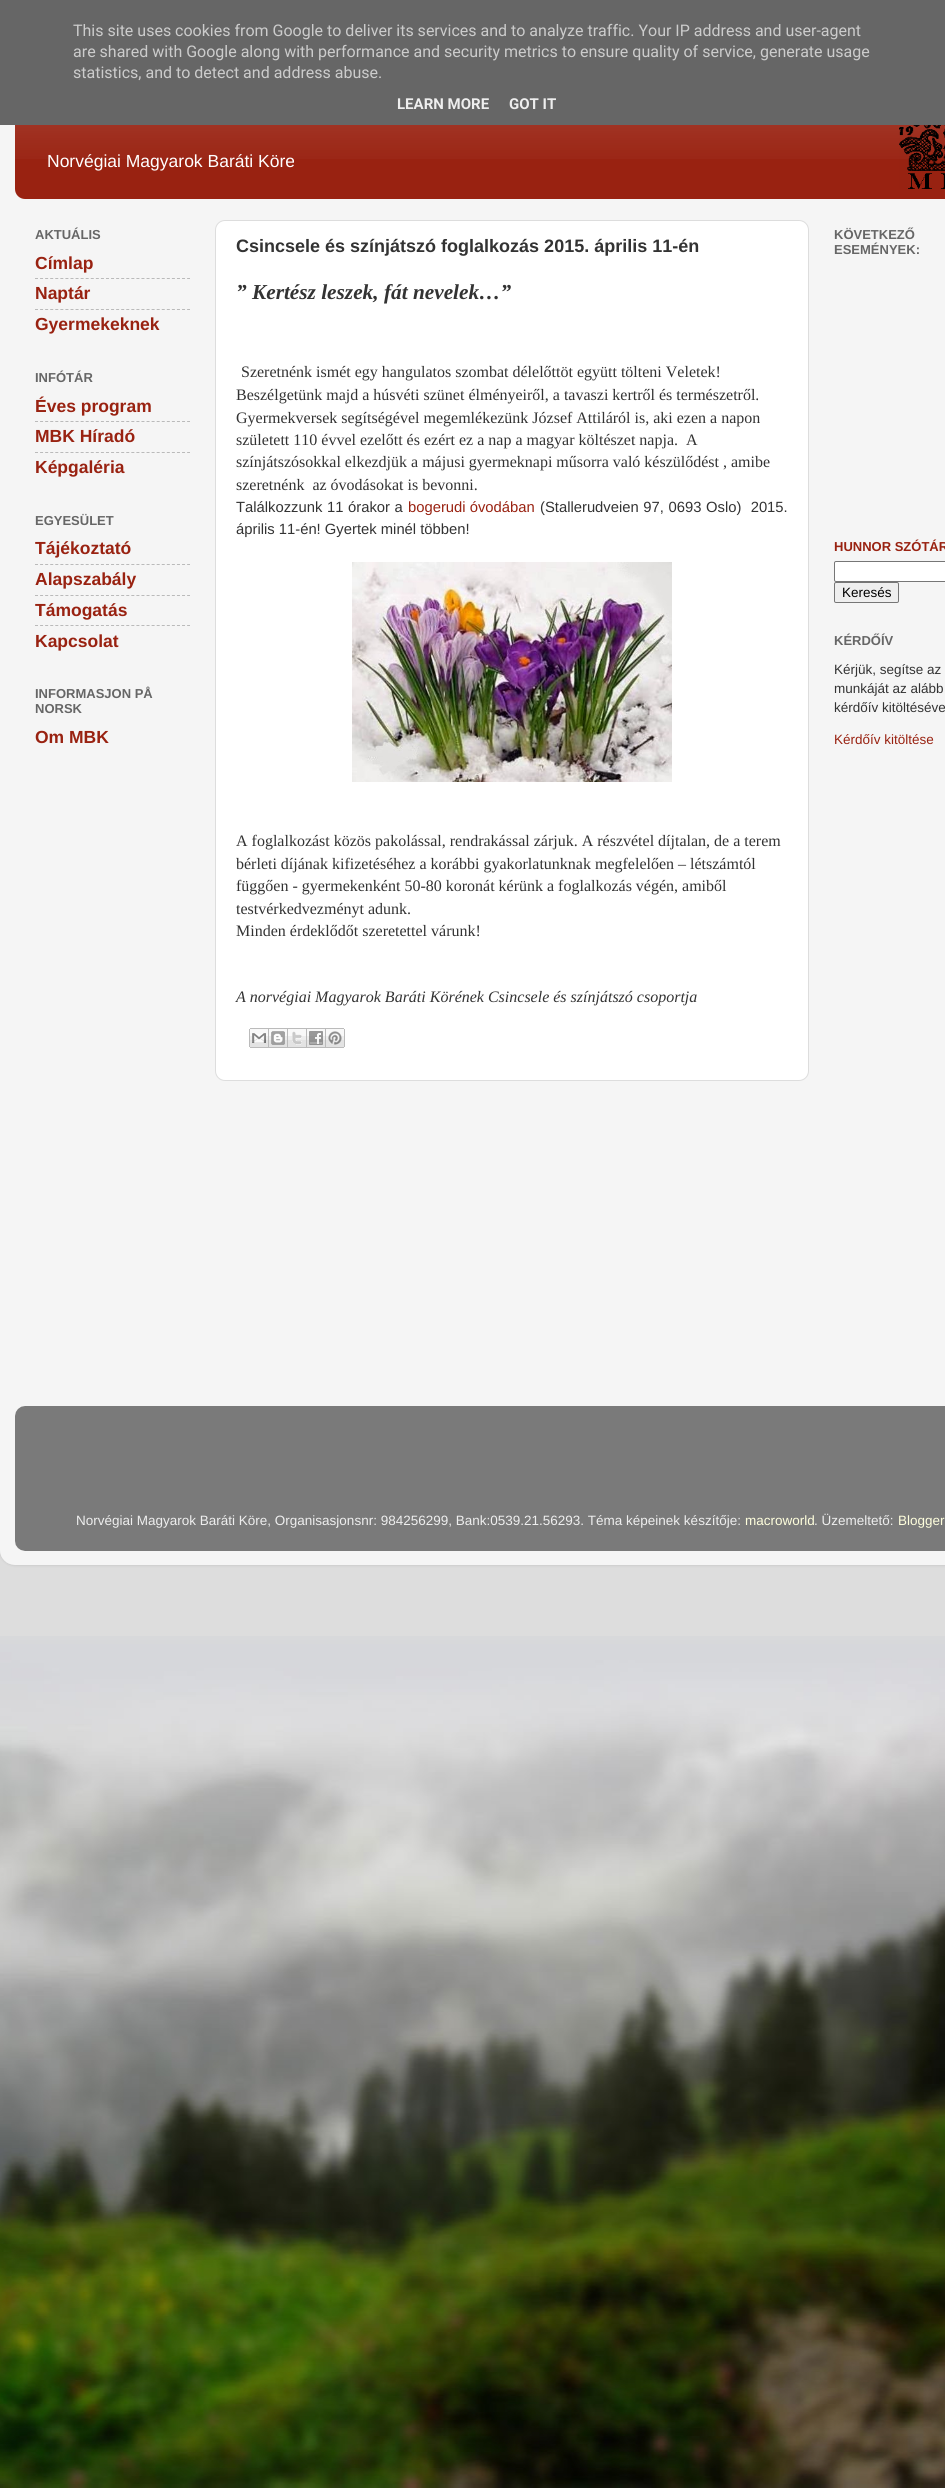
#include <cairo.h>
#include <math.h>
#include <stddef.h>

typedef struct { const char *family; double size; int italic, bold; unsigned color; } style_t;
static cairo_t *ctx;

static void ink(unsigned color) {
    cairo_set_source_rgb(ctx, (color >> 16) / 255.0, (color >> 8 & 255) / 255.0, (color & 255) / 255.0);
}

static void write(double x, double y, const char *s, const style_t *st) {
    cairo_select_font_face(ctx, st->family, st->italic ? CAIRO_FONT_SLANT_ITALIC : CAIRO_FONT_SLANT_NORMAL,
        st->bold ? CAIRO_FONT_WEIGHT_BOLD : CAIRO_FONT_WEIGHT_NORMAL);
    cairo_set_font_size(ctx, st->size);
    ink(st->color);
    cairo_move_to(ctx, x, y);
    cairo_show_text(ctx, s);
}

static void write_spaced(double x, double y, const char *s, double letter, double word) {
    cairo_move_to(ctx, x, y);
    while (*s) {
        char ch[5] = {0};
        int n = 0;
        do ch[n++] = *s++; while ((*s & 0xC0) == 0x80);
        cairo_show_text(ctx, ch);
        cairo_rel_move_to(ctx, letter + word * (*ch == ' '), 0);
    }
}

static void block(double x, double y, double w, double h, unsigned color) {
    ink(color);
    cairo_rectangle(ctx, x, y, w, h);
    cairo_fill(ctx);
}

static void round_path(double x, double y, double w, double h, double r) {
    cairo_new_sub_path(ctx);
    cairo_arc(ctx, x + w - r, y + h - r, r, 0, M_PI / 2);
    cairo_arc(ctx, x + r, y + h - r, r, M_PI / 2, M_PI);
    cairo_arc(ctx, x + r, y + r, r, M_PI, 1.5 * M_PI);
    cairo_arc(ctx, x + w - r, y + r, r, 1.5 * M_PI, 2 * M_PI);
    cairo_close_path(ctx);
}

static void blur_box(double x, double y, double w, double h, double r, double blur, double alpha) {
    cairo_push_group_with_content(ctx, CAIRO_CONTENT_ALPHA);
    cairo_set_operator(ctx, CAIRO_OPERATOR_SOURCE);
    for (int i = 15; i >= -15 && fmin(w, h) + blur * i / 3 > 0; i -= 2) {
        double e = blur * i / 6;
        cairo_set_source_rgba(ctx, 0, 0, 0, alpha * erfc((i - 1) / 8.5) / 2);
        round_path(x - e, y - e, w + 2 * e, h + 2 * e, fmax(0, fmin(r + e + blur * .6, fmin(w, h) / 2 + e)));
        cairo_fill(ctx);
    }
    cairo_pattern_t *soft = cairo_pop_group(ctx);
    cairo_mask(ctx, soft);
    cairo_pattern_destroy(soft);
}

static void paste(const char *path, double x, double y, double w, double h) {
    cairo_surface_t *image = cairo_image_surface_create_from_png(path);
    cairo_save(ctx);
    cairo_set_source_surface(ctx, image, x, y);
    cairo_rectangle(ctx, x, y, w, h);
    cairo_fill(ctx);
    cairo_restore(ctx);
    cairo_surface_destroy(image);
}

static const style_t s1 = {"Roboto", 16, 0, 0, 0xcccccc};
static const style_t s2 = {"Roboto", 15, 0, 1, 0xeeeeee};
static const style_t s3 = {"Liberation Sans", 17.5, 0, 0, 0xffffff};
static const style_t s4 = {"Liberation Sans", 13, 0, 1, 0x666666};
static const style_t s5 = {"Liberation Sans", 17.5, 0, 1, 0x992211};
static const style_t s6 = {"Liberation Sans", 18, 0, 1, 0x333333};
static const style_t s7 = {"Liberation Serif", 21.3, 1, 1, 0x333333};
static const style_t s8 = {"Liberation Serif", 16, 0, 0, 0x333333};
static const style_t s9 = {"Liberation Sans", 14.8, 0, 0, 0x992211};
static const style_t s10 = {"Liberation Sans", 14.8, 0, 0, 0x333333};
static const style_t s11 = {"Liberation Serif", 16, 1, 0, 0x333333};
static const style_t s12 = {"Liberation Sans", 13, 0, 1, 0x992211};
static const style_t s13 = {"Liberation Sans", 13.5, 0, 0, 0x000000};
static const style_t s14 = {"Liberation Sans", 13.5, 0, 0, 0x333333};
static const style_t s15 = {"Liberation Sans", 13.5, 0, 0, 0x992211};
static const style_t s16 = {"Liberation Sans", 13.5, 0, 0, 0xeeeeee};
static const style_t s17 = {"Liberation Sans", 13.5, 0, 0, 0xffffdd};

int main(void) {
    cairo_surface_t *surface = cairo_image_surface_create(CAIRO_FORMAT_RGB24, 945, 2488);
    ctx = cairo_create(surface);
    cairo_font_options_t *options = cairo_font_options_create();
    cairo_font_options_set_hint_metrics(options, CAIRO_HINT_METRICS_OFF);
    cairo_font_options_set_hint_style(options, CAIRO_HINT_STYLE_NONE);
    cairo_set_font_options(ctx, options);
    cairo_set_miter_limit(ctx, 4);
    ink(0xdddddd);
    cairo_paint(ctx);
    cairo_save(ctx);
    cairo_set_fill_rule(ctx, CAIRO_FILL_RULE_EVEN_ODD);
    cairo_new_path(ctx);
    cairo_move_to(ctx, 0, 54);
    cairo_line_to(ctx, 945, 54);
    cairo_line_to(ctx, 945, 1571);
    cairo_line_to(ctx, 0, 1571);
    cairo_close_path(ctx);
    cairo_move_to(ctx, 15, 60);
    cairo_line_to(ctx, 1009, 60);
    cairo_curve_to(ctx, 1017.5, 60, 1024, 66.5, 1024, 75);
    cairo_line_to(ctx, 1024, 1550);
    cairo_curve_to(ctx, 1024, 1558.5, 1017.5, 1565, 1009, 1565);
    cairo_line_to(ctx, 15, 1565);
    cairo_curve_to(ctx, 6.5, 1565, 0, 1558.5, 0, 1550);
    cairo_line_to(ctx, 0, 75);
    cairo_curve_to(ctx, 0, 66.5, 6.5, 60, 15, 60);
    cairo_close_path(ctx);
    cairo_clip(ctx);
    ink(0x000000);
    blur_box(0, 60, 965, 1505, 15, 1.5, 0.15);
    cairo_restore(ctx);
    paste("pic1.png", 0, 125, 945, 1440);
    ink(0x992211);
    round_path(15, 75, 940, 124, 10);
    cairo_fill(ctx);
    block(0, 0, 945, 125, 0x666666);
    write(73, 36, "This site uses cookies from Google to deliver its services and to analyze traffic. Your IP address and user-agent", &s1);
    write(73, 57, "are shared with Google along with performance and security metrics to ensure quality of service, generate usage", &s1);
    write(73, 78, "statistics, and to detect and address abuse.", &s1);
    write(397, 109, "LEARN MORE", &s2);
    write(509, 109, "GOT IT", &s2);
    paste("pic2.png", 15, 125, 930, 34);
    write(47, 167, "Norvégiai Magyarok Baráti Köre", &s3);
    paste("pic3.png", 899, 125, 46, 64);
    write(35, 239, "AKTUÁLIS", &s4);
    write(35, 269, "Címlap", &s5);
    cairo_new_path(ctx);
    cairo_move_to(ctx, 35, 278.5);
    cairo_line_to(ctx, 190, 278.5);
    ink(0xbababa);
    cairo_set_line_width(ctx, 1);
    cairo_set_dash(ctx, (double[]){3, 2.07}, 2, 0);
    cairo_stroke(ctx);
    write(35, 299, "Naptár", &s5);
    cairo_new_path(ctx);
    cairo_move_to(ctx, 35, 309.5);
    cairo_line_to(ctx, 190, 309.5);
    ink(0xbababa);
    cairo_stroke(ctx);
    write(35, 330, "Gyermekeknek", &s5);
    write(35, 382, "INFÓTÁR", &s4);
    write(35, 412, "Éves program", &s5);
    cairo_new_path(ctx);
    cairo_move_to(ctx, 35, 421.5);
    cairo_line_to(ctx, 190, 421.5);
    ink(0xbababa);
    cairo_stroke(ctx);
    write(35, 442, "MBK Híradó", &s5);
    cairo_new_path(ctx);
    cairo_move_to(ctx, 35, 452.5);
    cairo_line_to(ctx, 190, 452.5);
    ink(0xbababa);
    cairo_stroke(ctx);
    write(35, 473, "Képgaléria", &s5);
    write(35, 525, "EGYESÜLET", &s4);
    write(35, 554, "Tájékoztató", &s5);
    cairo_new_path(ctx);
    cairo_move_to(ctx, 35, 564.5);
    cairo_line_to(ctx, 190, 564.5);
    ink(0xbababa);
    cairo_stroke(ctx);
    write(35, 585, "Alapszabály", &s5);
    cairo_new_path(ctx);
    cairo_move_to(ctx, 35, 595.5);
    cairo_line_to(ctx, 190, 595.5);
    ink(0xbababa);
    cairo_stroke(ctx);
    write(35, 616, "Támogatás", &s5);
    cairo_new_path(ctx);
    cairo_move_to(ctx, 35, 625.5);
    cairo_line_to(ctx, 190, 625.5);
    ink(0xbababa);
    cairo_stroke(ctx);
    write(35, 647, "Kapcsolat", &s5);
    write(35, 698, "INFORMASJON PÅ", &s4);
    write(35, 713, "NORSK", &s4);
    write(35, 743, "Om MBK", &s5);
    ink(0xffffff);
    round_path(215.5, 220.5, 593, 860, 9.5);
    cairo_fill_preserve(ctx);
    ink(0xdddddd);
    cairo_set_dash(ctx, NULL, 0, 0);
    cairo_stroke(ctx);
    write(236, 252, "Csincsele és színjátszó foglalkozás 2015. április 11-én", &s6);
    write(236, 299, "” Kertész leszek, fát nevelek…”", &s7);
    write(241, 377, "Szeretnénk ismét egy hangulatos szombat délelőttöt együtt tölteni Veletek!", &s8);
    write(236, 400, "Beszélgetünk majd a húsvéti szünet élményeiről, a tavaszi kertről és természetről.", &s8);
    write(236, 423, "Gyermekversek segítségével megemlékezünk József Attiláról is, aki ezen a napon", &s8);
    write(236, 445, "született 110 évvel ezelőtt és ezért ez a nap a magyar költészet napja.  A", &s8);
    write(236, 467, "színjátszósokkal elkezdjük a májusi gyermeknapi műsorra való készülődést , amibe", &s8);
    write(236, 490, "szeretnénk  az óvodásokat is bevonni.", &s8);
    cairo_select_font_face(ctx, "Liberation Sans", CAIRO_FONT_SLANT_NORMAL, CAIRO_FONT_WEIGHT_NORMAL);
    cairo_set_font_size(ctx, 14.8);
    write_spaced(236, 512, "Találkozzunk 11 órakor a", 0, 0.5);
    write(408, 512, "bogerudi óvodában", &s9);
    ink(0x333333);
    write_spaced(540, 512, "(Stallerudveien 97, 0693 Oslo)  2015.", 0, 0.5);
    write(236, 534, "április 11-én! Gyertek minél többen!", &s10);
    paste("pic4.png", 352, 562, 320, 220);
    write(236, 846, "A foglalkozást közös pakolással, rendrakással zárjuk. A részvétel díjtalan, de a terem", &s8);
    write(236, 869, "bérleti díjának kifizetéséhez a korábbi gyakorlatunknak megfelelően – létszámtól", &s8);
    write(236, 891, "függően - gyermekenként 50-80 koronát kérünk a foglalkozás végén, amiből", &s8);
    write(236, 914, "testvérkedvezményt adunk.", &s8);
    write(236, 936, "Minden érdeklődőt szeretettel várunk!", &s8);
    write(236, 1002, "A norvégiai Magyarok Baráti Körének Csincsele és színjátszó csoportja", &s11);
    paste("pic5.png", 249, 1028, 20, 20);
    paste("pic6.png", 269, 1028, 19, 20);
    paste("pic7.png", 288, 1028, 19, 20);
    paste("pic8.png", 307, 1028, 19, 20);
    paste("pic9.png", 326, 1028, 19, 20);
    write(834, 239, "KÖVETKEZŐ", &s4);
    write(834, 254, "ESEMÉNYEK:", &s4);
    write(834, 551, "HUNNOR SZÓTÁR", &s12);
    ink(0xffffff);
    round_path(834.5, 561.5, 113, 20, 1.5);
    cairo_fill_preserve(ctx);
    ink(0x767676);
    cairo_stroke(ctx);
    ink(0xefefef);
    round_path(834.5, 582.5, 64, 20, 1.5);
    cairo_fill_preserve(ctx);
    ink(0x767676);
    cairo_stroke(ctx);
    write(842, 597, "Keresés", &s13);
    write(834, 645, "KÉRDŐÍV", &s4);
    write(834, 674, "Kérjük, segítse az", &s14);
    write(834, 693, "munkáját az alább", &s14);
    write(834, 712, "kérdőív kitöltéséve", &s14);
    write(834, 744, "Kérdőív kitöltése", &s15);
    paste("pic10.png", 15, 1406, 930, 145);
    write(76, 1525, "Norvégiai Magyarok Baráti Köre, Organisasjonsnr: 984256299, Bank:0539.21.56293. Téma képeinek készítője:", &s16);
    write(745, 1525, "macroworld", &s17);
    write(814, 1525, ". Üzemeltető:", &s16);
    write(898, 1525, "Blogger", &s17);
    paste("pic11.png", 0, 1636, 945, 852);
    cairo_surface_write_to_png(surface, "screenshot.png");
    cairo_font_options_destroy(options);
    cairo_destroy(ctx);
    cairo_surface_destroy(surface);
    return 0;
}
